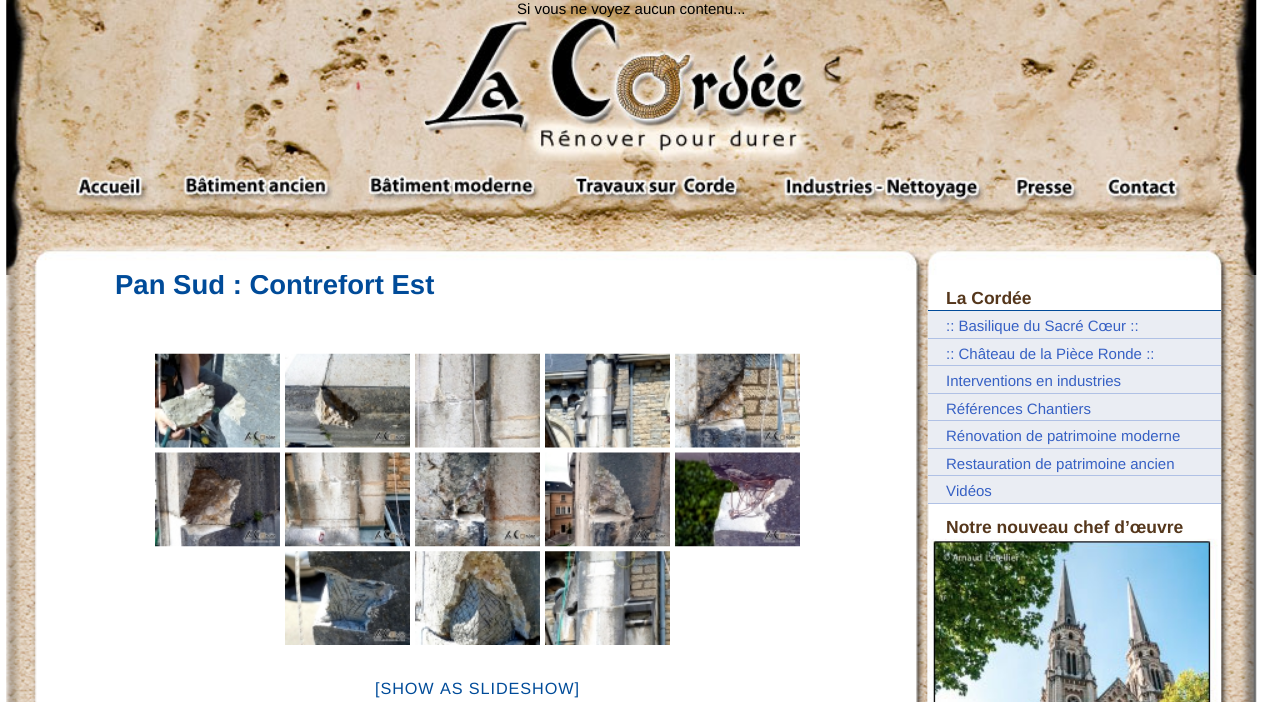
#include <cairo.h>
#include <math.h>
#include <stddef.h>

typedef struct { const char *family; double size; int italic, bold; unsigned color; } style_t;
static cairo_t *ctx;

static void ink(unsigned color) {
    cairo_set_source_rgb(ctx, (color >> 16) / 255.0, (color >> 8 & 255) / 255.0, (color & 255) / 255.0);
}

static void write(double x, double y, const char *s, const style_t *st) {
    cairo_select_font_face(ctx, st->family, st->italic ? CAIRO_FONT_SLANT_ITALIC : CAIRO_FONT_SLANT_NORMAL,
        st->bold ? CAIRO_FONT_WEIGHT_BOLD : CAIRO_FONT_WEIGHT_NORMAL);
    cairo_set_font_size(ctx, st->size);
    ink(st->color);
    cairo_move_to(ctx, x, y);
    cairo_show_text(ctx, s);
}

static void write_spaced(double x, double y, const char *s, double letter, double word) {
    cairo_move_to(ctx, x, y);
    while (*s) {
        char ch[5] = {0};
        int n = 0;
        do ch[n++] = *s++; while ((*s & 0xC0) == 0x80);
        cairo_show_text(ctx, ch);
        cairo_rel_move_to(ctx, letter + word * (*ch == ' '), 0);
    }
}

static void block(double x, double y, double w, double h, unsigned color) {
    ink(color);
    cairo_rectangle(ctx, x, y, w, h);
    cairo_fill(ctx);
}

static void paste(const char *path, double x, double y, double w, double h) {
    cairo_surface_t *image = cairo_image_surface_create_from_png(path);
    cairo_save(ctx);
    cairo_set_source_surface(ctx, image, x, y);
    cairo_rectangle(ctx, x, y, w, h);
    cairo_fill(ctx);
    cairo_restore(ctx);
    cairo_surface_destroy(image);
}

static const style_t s1 = {"Liberation Sans", 27.5, 0, 1, 0x004b99};
static const style_t s2 = {"Liberation Sans", 15, 0, 0, 0x000000};
static const style_t s3 = {"Liberation Sans", 17.5, 0, 1, 0x55371c};
static const style_t s4 = {"Liberation Sans", 15, 0, 0, 0x3660c4};

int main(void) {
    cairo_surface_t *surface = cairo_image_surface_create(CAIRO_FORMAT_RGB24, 1262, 702);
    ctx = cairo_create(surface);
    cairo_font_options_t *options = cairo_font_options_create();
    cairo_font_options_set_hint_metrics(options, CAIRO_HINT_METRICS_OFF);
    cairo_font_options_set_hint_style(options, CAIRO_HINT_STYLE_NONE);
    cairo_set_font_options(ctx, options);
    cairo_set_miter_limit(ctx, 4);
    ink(0xffffff);
    cairo_paint(ctx);
    paste("pic2.png", 6, 275, 1251, 427);
    write(115, 294, "Pan Sud : Contrefort Est", &s1);
    paste("pic1.png", 6, 0, 1251, 275);
    write(517, 14, "Si vous ne voyez aucun contenu...", &s2);
    paste("pic3.png", 155, 353, 125, 95);
    paste("pic4.png", 285, 353, 125, 95);
    paste("pic5.png", 415, 353, 125, 95);
    paste("pic6.png", 545, 353, 125, 95);
    paste("pic7.png", 675, 353, 125, 95);
    paste("pic8.png", 155, 452, 125, 95);
    paste("pic9.png", 285, 452, 125, 95);
    paste("pic10.png", 415, 452, 125, 95);
    paste("pic11.png", 545, 452, 125, 95);
    paste("pic12.png", 675, 452, 125, 95);
    paste("pic13.png", 285, 551, 125, 94);
    paste("pic14.png", 415, 551, 125, 94);
    paste("pic15.png", 545, 551, 125, 94);
    cairo_set_font_size(ctx, 16.25);
    ink(0x004b99);
    write_spaced(375, 694, "[SHOW AS SLIDESHOW]", 0.9, 0);
    write(946, 304, "La Cordée", &s3);
    block(928, 310, 293, 1, 0x004b99);
    block(928, 311, 293, 27, 0xeaedf3);
    block(928, 338, 293, 1, 0xb0c1e5);
    write(946, 331, ":: Basilique du Sacré Cœur ::", &s4);
    block(928, 339, 293, 26, 0xeaedf3);
    block(928, 365, 293, 1, 0xb0c1e5);
    write(946, 359, ":: Château de la Pièce Ronde ::", &s4);
    block(928, 366, 293, 27, 0xeaedf3);
    block(928, 393, 293, 1, 0xb0c1e5);
    write(946, 386, "Interventions en industries", &s4);
    block(928, 394, 293, 26, 0xeaedf3);
    block(928, 420, 293, 1, 0xb0c1e5);
    write(946, 414, "Références Chantiers", &s4);
    block(928, 421, 293, 27, 0xeaedf3);
    block(928, 448, 293, 1, 0xb0c1e5);
    write(946, 441, "Rénovation de patrimoine moderne", &s4);
    block(928, 449, 293, 26, 0xeaedf3);
    block(928, 475, 293, 1, 0xb0c1e5);
    write(946, 469, "Restauration de patrimoine ancien", &s4);
    block(928, 476, 293, 27, 0xeaedf3);
    block(928, 503, 293, 1, 0xb0c1e5);
    write(946, 496, "Vidéos", &s4);
    write(946, 533, "Notre nouveau chef d’œuvre", &s3);
    paste("pic16.png", 927, 538, 291, 164);
    cairo_surface_write_to_png(surface, "screenshot.png");
    cairo_font_options_destroy(options);
    cairo_destroy(ctx);
    cairo_surface_destroy(surface);
    return 0;
}
